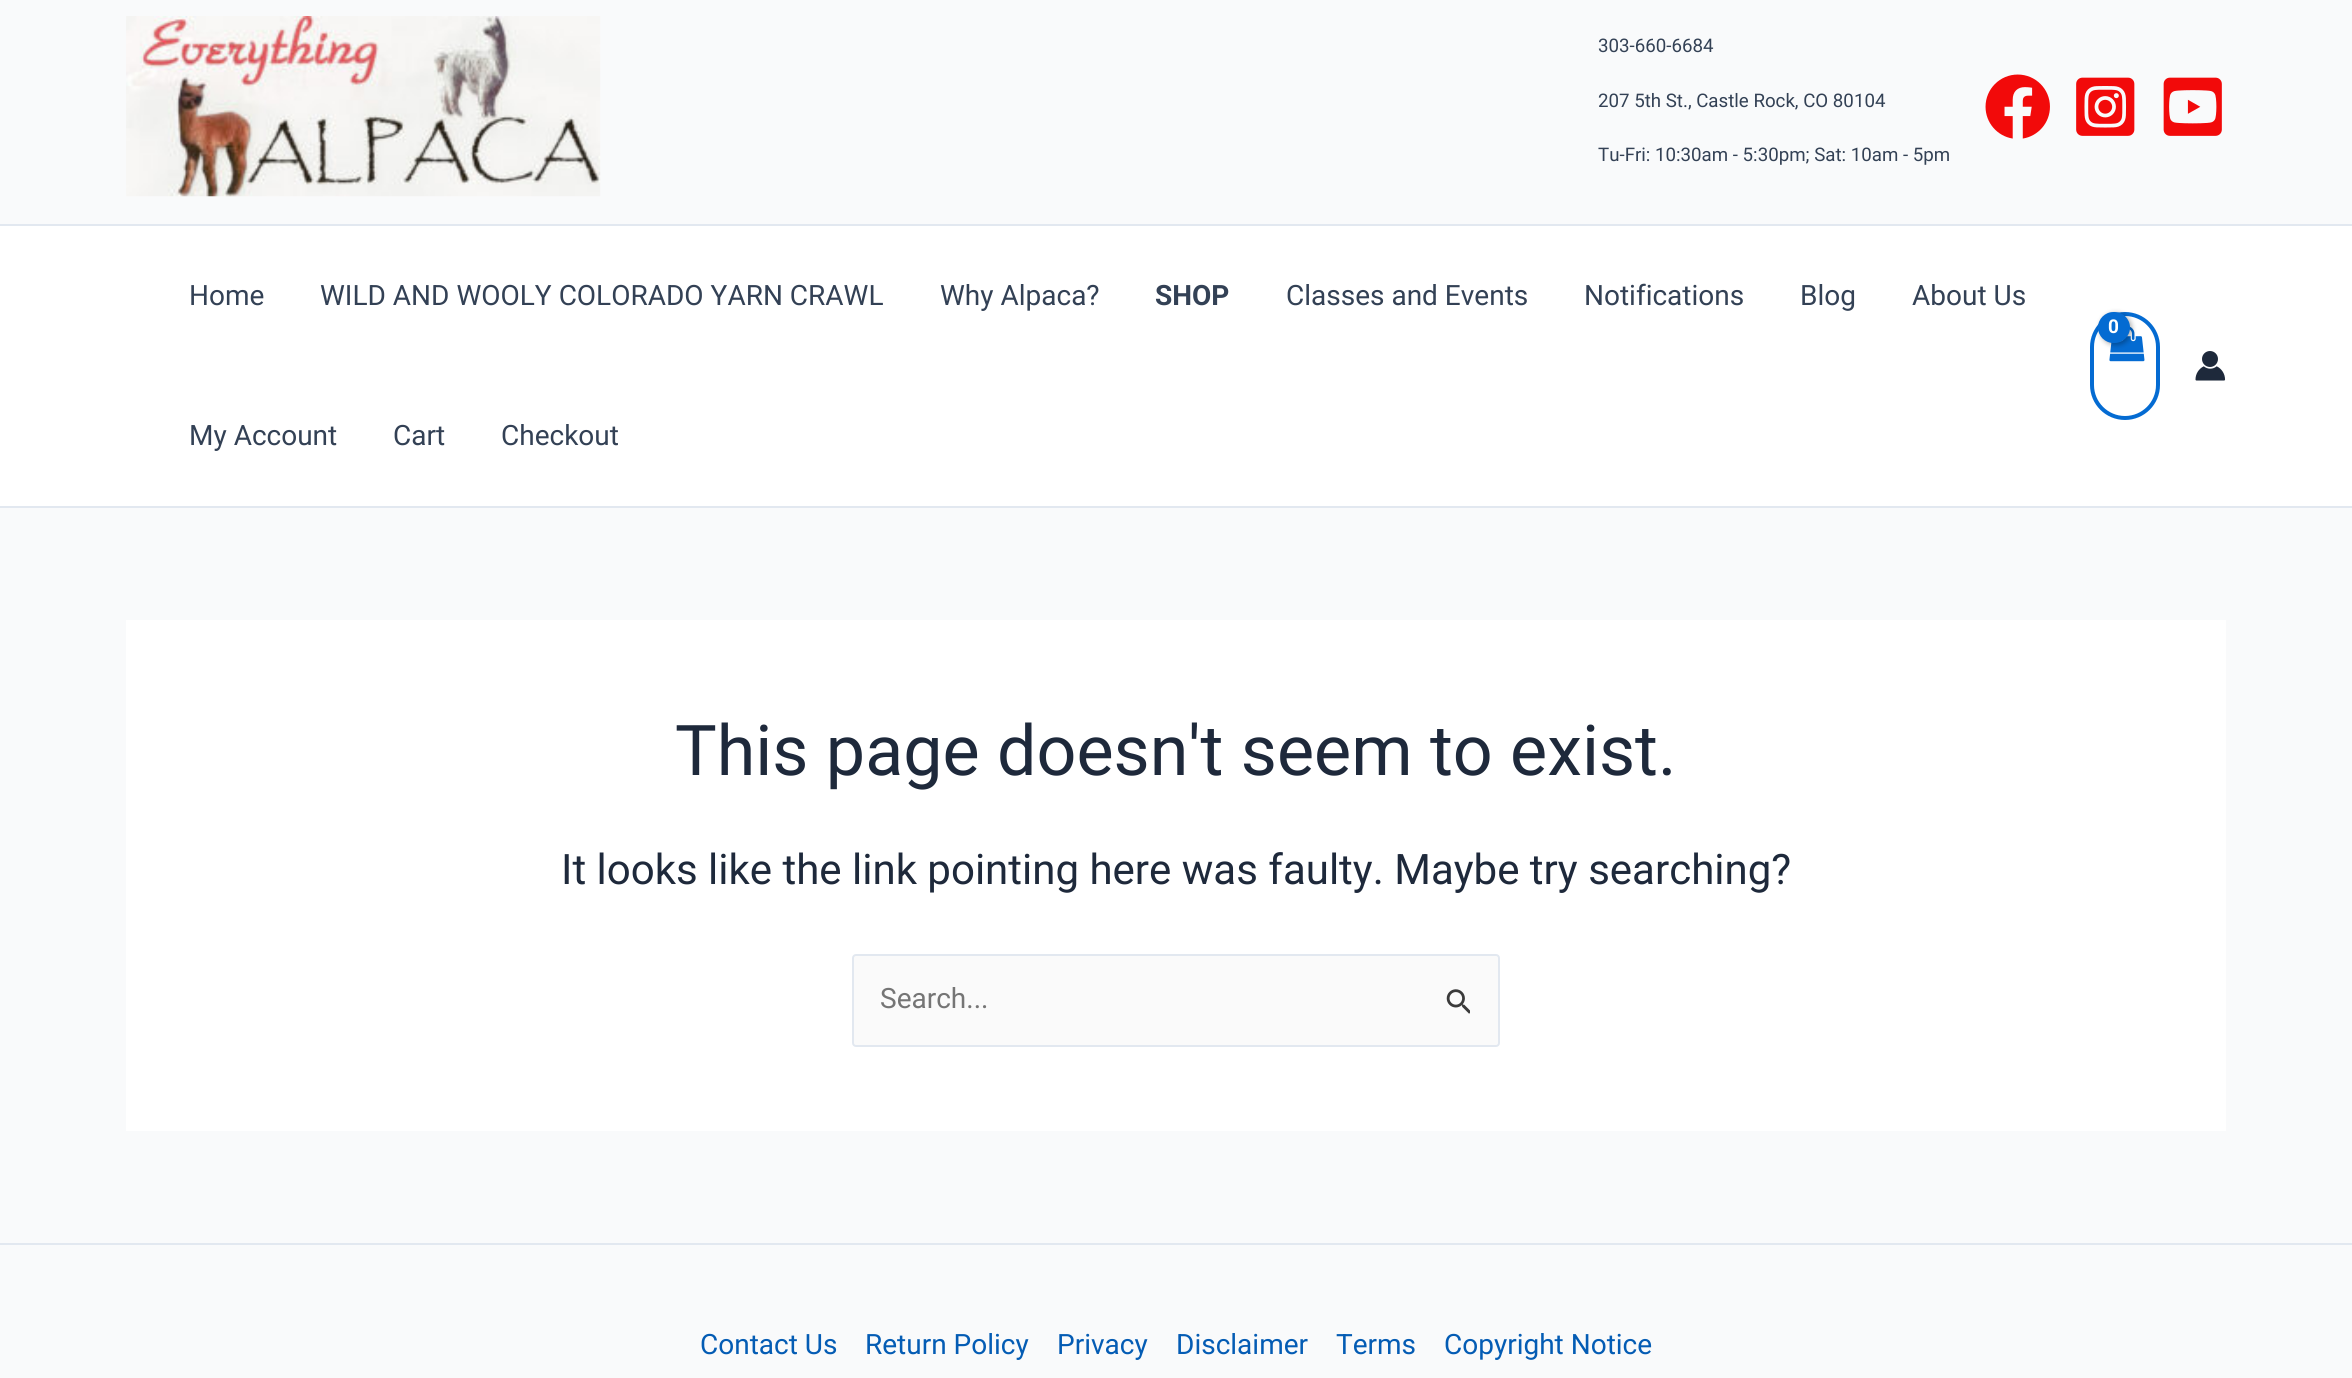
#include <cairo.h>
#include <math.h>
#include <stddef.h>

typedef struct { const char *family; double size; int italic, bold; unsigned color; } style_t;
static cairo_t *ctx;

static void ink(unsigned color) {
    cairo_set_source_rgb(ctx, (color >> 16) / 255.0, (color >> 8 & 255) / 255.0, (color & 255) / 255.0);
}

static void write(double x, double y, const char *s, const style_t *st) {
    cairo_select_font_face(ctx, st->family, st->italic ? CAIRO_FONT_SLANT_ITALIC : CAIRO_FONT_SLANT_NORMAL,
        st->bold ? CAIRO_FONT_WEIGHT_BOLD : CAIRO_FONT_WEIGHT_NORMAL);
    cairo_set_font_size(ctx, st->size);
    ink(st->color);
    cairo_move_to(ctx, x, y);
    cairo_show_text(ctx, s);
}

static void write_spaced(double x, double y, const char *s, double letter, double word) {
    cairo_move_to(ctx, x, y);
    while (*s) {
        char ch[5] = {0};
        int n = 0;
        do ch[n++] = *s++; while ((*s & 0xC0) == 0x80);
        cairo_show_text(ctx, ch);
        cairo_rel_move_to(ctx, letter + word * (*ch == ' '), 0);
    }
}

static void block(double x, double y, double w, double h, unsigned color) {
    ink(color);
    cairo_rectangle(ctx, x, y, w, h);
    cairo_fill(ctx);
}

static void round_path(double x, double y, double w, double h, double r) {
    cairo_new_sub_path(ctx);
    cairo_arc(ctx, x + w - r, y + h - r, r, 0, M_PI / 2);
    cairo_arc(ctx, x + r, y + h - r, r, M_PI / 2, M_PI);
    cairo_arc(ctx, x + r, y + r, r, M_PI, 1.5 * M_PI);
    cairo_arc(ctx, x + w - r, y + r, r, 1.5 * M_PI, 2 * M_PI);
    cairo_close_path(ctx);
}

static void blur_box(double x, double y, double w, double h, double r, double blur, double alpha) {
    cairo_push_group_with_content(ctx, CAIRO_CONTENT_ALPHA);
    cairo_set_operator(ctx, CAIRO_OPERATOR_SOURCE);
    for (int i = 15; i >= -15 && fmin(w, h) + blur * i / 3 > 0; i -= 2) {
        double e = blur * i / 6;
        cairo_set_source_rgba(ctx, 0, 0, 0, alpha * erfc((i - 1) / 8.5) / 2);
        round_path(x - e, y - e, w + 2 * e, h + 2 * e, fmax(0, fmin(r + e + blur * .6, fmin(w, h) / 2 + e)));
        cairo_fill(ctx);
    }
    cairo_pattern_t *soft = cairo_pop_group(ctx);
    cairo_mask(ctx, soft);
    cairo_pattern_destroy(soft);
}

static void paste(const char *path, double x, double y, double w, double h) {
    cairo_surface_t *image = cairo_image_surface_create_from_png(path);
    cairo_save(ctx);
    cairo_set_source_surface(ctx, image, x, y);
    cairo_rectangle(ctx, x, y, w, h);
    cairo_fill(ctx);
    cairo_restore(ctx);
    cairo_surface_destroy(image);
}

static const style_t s1 = {"Roboto", 18.7, 0, 0, 0x334155};
static const style_t s2 = {"Roboto", 28, 0, 0, 0x334155};
static const style_t s3 = {"Roboto", 28, 0, 1, 0x334155};
static const style_t s4 = {"Roboto", 70, 0, 0, 0x1e293b};
static const style_t s5 = {"Roboto", 42, 0, 0, 0x1e293b};
static const style_t s6 = {"Roboto", 28, 0, 0, 0x757575};
static const style_t s7 = {"Roboto", 28, 0, 0, 0x045cb4};

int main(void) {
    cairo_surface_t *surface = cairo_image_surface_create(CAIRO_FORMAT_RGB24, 2352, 1378);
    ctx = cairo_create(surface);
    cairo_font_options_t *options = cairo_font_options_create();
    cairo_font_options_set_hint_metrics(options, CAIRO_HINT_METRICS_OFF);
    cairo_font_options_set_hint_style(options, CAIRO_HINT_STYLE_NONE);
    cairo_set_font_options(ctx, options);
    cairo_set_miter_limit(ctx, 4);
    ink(0xf9fafb);
    cairo_paint(ctx);
    block(0, 224, 2352, 2, 0xe2e8f0);
    paste("pic1.png", 126, 16, 475, 181);
    write(1598, 52, "303-660-6684", &s1);
    write(1598, 107, "207 5th St., Castle Rock, CO 80104", &s1);
    write(1598, 161, "Tu-Fri: 10:30am - 5:30pm; Sat: 10am - 5pm", &s1);
    paste("pic2.png", 1985, 74, 65, 65);
    paste("pic3.png", 2076, 77, 59, 59);
    paste("pic4.png", 2163, 77, 59, 59);
    block(0, 226, 2352, 280, 0xffffff);
    block(0, 506, 2352, 2, 0xe2e8f0);
    write(189, 305, "Home", &s2);
    write(320, 305, "WILD AND WOOLY COLORADO YARN CRAWL", &s2);
    write(940, 305, "Why Alpaca?", &s2);
    write(1155, 305, "SHOP", &s3);
    write(1286, 305, "Classes and Events", &s2);
    write(1584, 305, "Notifications", &s2);
    write(1800, 305, "Blog", &s2);
    write(1912, 305, "About Us", &s2);
    write(189, 445, "My Account", &s2);
    write(393, 445, "Cart", &s2);
    write(501, 445, "Checkout", &s2);
    round_path(2092, 314, 66, 104, 33);
    ink(0x046bd2);
    cairo_set_line_width(ctx, 4);
    cairo_stroke(ctx);
    paste("pic5.png", 2109, 326, 36, 36);
    ink(0x000000);
    blur_box(2100, 313, 32, 32, 16, 2.5, 0.3);
    ink(0x046bd2);
    round_path(2098, 312, 32, 31, 15.5);
    cairo_fill(ctx);
    cairo_select_font_face(ctx, "Roboto", CAIRO_FONT_SLANT_NORMAL, CAIRO_FONT_WEIGHT_BOLD);
    cairo_set_font_size(ctx, 19);
    ink(0xffffff);
    write_spaced(2108, 333, "0", -1, 0);
    paste("pic6.png", 2195, 351, 31, 30);
    block(126, 620, 2100, 511, 0xffffff);
    write(675, 775, "This page doesn't seem to exist.", &s4);
    write(561, 884, "It looks like the link pointing here was faulty. Maybe try searching?", &s5);
    ink(0xfafafa);
    round_path(853, 955, 646, 91, 3);
    cairo_fill_preserve(ctx);
    ink(0xe2e8f0);
    cairo_set_line_width(ctx, 2);
    cairo_stroke(ctx);
    write(880, 1008, "Search...", &s6);
    paste("pic7.png", 1446, 989, 24, 25);
    block(0, 1243, 2352, 2, 0xe2e8f0);
    write(700, 1354, "Contact Us", &s7);
    write(865, 1354, "Return Policy", &s7);
    write(1057, 1354, "Privacy", &s7);
    write(1176, 1354, "Disclaimer", &s7);
    write(1336, 1354, "Terms", &s7);
    write(1444, 1354, "Copyright Notice", &s7);
    cairo_surface_write_to_png(surface, "screenshot.png");
    cairo_font_options_destroy(options);
    cairo_destroy(ctx);
    cairo_surface_destroy(surface);
    return 0;
}
